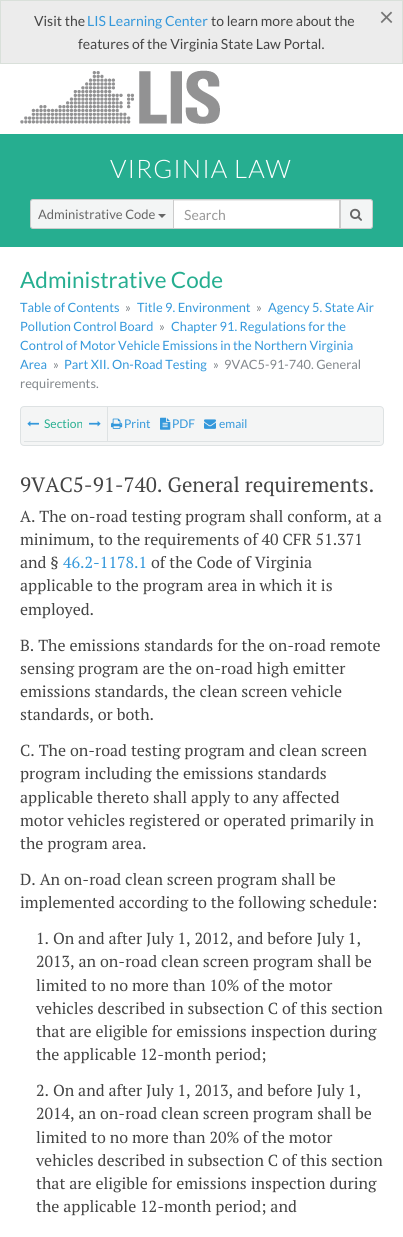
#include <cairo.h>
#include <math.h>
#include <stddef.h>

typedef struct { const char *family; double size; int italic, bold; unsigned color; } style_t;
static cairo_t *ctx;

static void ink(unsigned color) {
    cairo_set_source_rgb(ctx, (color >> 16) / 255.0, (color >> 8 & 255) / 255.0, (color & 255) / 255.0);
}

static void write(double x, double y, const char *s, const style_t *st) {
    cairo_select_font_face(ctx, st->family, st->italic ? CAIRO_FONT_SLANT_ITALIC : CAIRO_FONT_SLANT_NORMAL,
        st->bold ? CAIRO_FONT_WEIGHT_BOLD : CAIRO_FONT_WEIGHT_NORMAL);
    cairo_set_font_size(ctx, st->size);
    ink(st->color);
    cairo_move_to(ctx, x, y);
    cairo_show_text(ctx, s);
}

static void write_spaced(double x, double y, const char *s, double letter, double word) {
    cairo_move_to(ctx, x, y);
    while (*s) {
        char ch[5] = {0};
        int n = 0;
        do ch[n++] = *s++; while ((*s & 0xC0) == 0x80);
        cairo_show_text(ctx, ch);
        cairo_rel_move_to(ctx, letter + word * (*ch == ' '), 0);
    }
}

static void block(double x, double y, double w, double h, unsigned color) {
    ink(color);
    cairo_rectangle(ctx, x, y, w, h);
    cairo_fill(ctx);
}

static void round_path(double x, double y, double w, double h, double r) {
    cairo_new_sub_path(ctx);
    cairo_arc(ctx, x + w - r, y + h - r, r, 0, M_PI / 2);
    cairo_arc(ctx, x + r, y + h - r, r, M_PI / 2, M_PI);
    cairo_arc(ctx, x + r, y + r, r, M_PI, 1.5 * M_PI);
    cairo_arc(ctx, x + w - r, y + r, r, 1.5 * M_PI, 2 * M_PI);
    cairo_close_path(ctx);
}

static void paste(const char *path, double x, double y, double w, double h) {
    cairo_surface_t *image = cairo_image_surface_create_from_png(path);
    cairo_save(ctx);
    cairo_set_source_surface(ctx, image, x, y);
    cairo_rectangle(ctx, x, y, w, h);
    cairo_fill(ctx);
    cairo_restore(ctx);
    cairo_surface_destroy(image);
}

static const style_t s1 = {"Lato", 14, 0, 0, 0x444444};
static const style_t s2 = {"Lato", 14, 0, 0, 0x3498db};
static const style_t s3 = {"Lato", 26, 0, 0, 0x767676};
static const style_t s4 = {"Lato", 13, 0, 0, 0x666666};
static const style_t s5 = {"Lato", 14, 0, 0, 0x999999};
static const style_t s6 = {"Lato", 22.5, 0, 0, 0x26ae90};
static const style_t s7 = {"Lato", 12.8, 0, 0, 0x3498db};
static const style_t s8 = {"Lato", 12.8, 0, 0, 0x82878b};
static const style_t s9 = {"Lato", 12, 0, 0, 0x26ae90};
static const style_t s10 = {"Lato", 12, 0, 0, 0x3498db};
static const style_t s11 = {"PT Serif", 20.75, 0, 0, 0x444444};
static const style_t s12 = {"PT Serif", 16, 0, 0, 0x444444};
static const style_t s13 = {"PT Serif", 16, 0, 0, 0x3498db};

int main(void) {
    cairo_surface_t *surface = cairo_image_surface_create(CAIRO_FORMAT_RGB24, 403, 1237);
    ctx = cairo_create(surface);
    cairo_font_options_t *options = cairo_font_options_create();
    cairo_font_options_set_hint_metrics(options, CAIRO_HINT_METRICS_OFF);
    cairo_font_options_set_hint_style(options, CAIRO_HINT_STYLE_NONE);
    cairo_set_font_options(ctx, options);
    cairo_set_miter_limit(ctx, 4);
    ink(0xffffff);
    cairo_paint(ctx);
    ink(0xececec);
    cairo_rectangle(ctx, 0.5, 0.5, 402, 63);
    cairo_fill_preserve(ctx);
    ink(0xd9e0da);
    cairo_set_line_width(ctx, 1);
    cairo_stroke(ctx);
    write(34, 26, "Visit the", &s1);
    write(87, 26, "LIS Learning Center", &s2);
    write(211, 26, "to learn more about the", &s1);
    write(379, 26, "×", &s3);
    write(78, 49, "features of the Virginia State Law Portal.", &s1);
    paste("pic1.png", 20, 70, 200, 54);
    block(0, 134, 403, 113, 0x26ae90);
    cairo_select_font_face(ctx, "Lato Light", CAIRO_FONT_SLANT_NORMAL, CAIRO_FONT_WEIGHT_NORMAL);
    cairo_set_font_size(ctx, 25.5);
    ink(0xffffff);
    write_spaced(110, 178, "VIRGINIA LAW", 1, 0);
    block(174, 201, 165, 27, 0xffffff);
    block(174, 200, 165, 1, 0xececec);
    cairo_rectangle(ctx, 173.5, 199.5, 166, 29);
    ink(0xcccccc);
    cairo_stroke(ctx);
    ink(0xf3f5f5);
    cairo_new_path(ctx);
    cairo_move_to(ctx, 33, 199.5);
    cairo_line_to(ctx, 173.5, 199.5);
    cairo_line_to(ctx, 173.5, 228.5);
    cairo_line_to(ctx, 33, 228.5);
    cairo_curve_to(ctx, 31.5, 228.5, 30.5, 227.5, 30.5, 226);
    cairo_line_to(ctx, 30.5, 202);
    cairo_curve_to(ctx, 30.5, 200.5, 31.5, 199.5, 33, 199.5);
    cairo_close_path(ctx);
    cairo_fill_preserve(ctx);
    ink(0xcccccc);
    cairo_stroke(ctx);
    write(38, 219, "Administrative Code", &s4);
    cairo_new_path(ctx);
    cairo_move_to(ctx, 158, 214);
    cairo_line_to(ctx, 166, 214);
    cairo_line_to(ctx, 162, 218);
    cairo_close_path(ctx);
    cairo_fill(ctx);
    write(184, 220, "Search", &s5);
    ink(0xf3f5f5);
    cairo_new_path(ctx);
    cairo_move_to(ctx, 340.5, 199.5);
    cairo_line_to(ctx, 370, 199.5);
    cairo_curve_to(ctx, 371.5, 199.5, 372.5, 200.5, 372.5, 202);
    cairo_line_to(ctx, 372.5, 226);
    cairo_curve_to(ctx, 372.5, 227.5, 371.5, 228.5, 370, 228.5);
    cairo_line_to(ctx, 340.5, 228.5);
    cairo_close_path(ctx);
    cairo_fill_preserve(ctx);
    ink(0xcccccc);
    cairo_stroke(ctx);
    paste("pic2.png", 350, 208, 12, 13);
    write(20, 288, "Administrative Code", &s6);
    write(20, 312, "Table of Contents", &s7);
    write(125, 312, "»", &s8);
    write(137, 312, "Title 9. Environment", &s7);
    write(256, 312, "»", &s8);
    write(268, 312, "Agency 5. State Air", &s7);
    write(20, 331, "Pollution Control Board", &s7);
    write(159, 331, "»", &s8);
    write(171, 331, "Chapter 91. Regulations for the", &s7);
    write(20, 350, "Control of Motor Vehicle Emissions in the Northern Virginia", &s7);
    write(20, 369, "Area", &s7);
    write(53, 369, "»", &s8);
    write(64, 369, "Part XII. On-Road Testing", &s7);
    write(213, 369, "»", &s8);
    write(224, 369, "9VAC5-91-740. General", &s8);
    write(20, 388, "requirements.", &s8);
    ink(0xf4f5f5);
    round_path(20.5, 406.5, 363, 39, 3.5);
    cairo_fill_preserve(ctx);
    ink(0xdee2e3);
    cairo_stroke(ctx);
    block(107, 407, 1, 34, 0xdee2e3);
    paste("pic3.png", 27, 421, 12, 6);
    write(44, 428, "Section", &s9);
    paste("pic4.png", 89, 421, 12, 6);
    paste("pic5.png", 111, 418, 12, 11);
    write(124, 428, "Print", &s10);
    paste("pic6.png", 160, 417, 11, 13);
    write(172, 428, "PDF", &s10);
    paste("pic7.png", 204, 419, 12, 10);
    write(219, 428, "email", &s10);
    block(24, 441, 356, 1, 0xdee2e3);
    write(20, 492, "9VAC5-91-740. General requirements.", &s11);
    write(20, 522, "A. The on-road testing program shall conform, at a", &s12);
    write(20, 545, "minimum, to the requirements of 40 CFR 51.371", &s12);
    write(20, 568, "and §", &s12);
    write(63, 568, "46.2-1178.1", &s13);
    write(151, 568, "of the Code of Virginia", &s12);
    write(20, 591, "applicable to the program area in which it is", &s12);
    write(20, 615, "employed.", &s12);
    write(20, 651, "B. The emissions standards for the on-road remote", &s12);
    write(20, 674, "sensing program are the on-road high emitter", &s12);
    write(20, 697, "emissions standards, the clean screen vehicle", &s12);
    write(20, 720, "standards, or both.", &s12);
    write(20, 756, "C. The on-road testing program and clean screen", &s12);
    write(20, 779, "program including the emissions standards", &s12);
    write(20, 803, "applicable thereto shall apply to any affected", &s12);
    write(20, 826, "motor vehicles registered or operated primarily in", &s12);
    write(20, 849, "the program area.", &s12);
    write(20, 885, "D. An on-road clean screen program shall be", &s12);
    write(20, 908, "implemented according to the following schedule:", &s12);
    write(36, 944, "1. On and after July 1, 2012, and before July 1,", &s12);
    write(36, 967, "2013, an on-road clean screen program shall be", &s12);
    write(36, 991, "limited to no more than 10% of the motor", &s12);
    write(36, 1014, "vehicles described in subsection C of this section", &s12);
    write(36, 1037, "that are eligible for emissions inspection during", &s12);
    write(36, 1060, "the applicable 12-month period;", &s12);
    write(36, 1096, "2. On and after July 1, 2013, and before July 1,", &s12);
    write(36, 1119, "2014, an on-road clean screen program shall be", &s12);
    write(36, 1143, "limited to no more than 20% of the motor", &s12);
    write(36, 1166, "vehicles described in subsection C of this section", &s12);
    write(36, 1189, "that are eligible for emissions inspection during", &s12);
    write(36, 1212, "the applicable 12-month period; and", &s12);
    cairo_surface_write_to_png(surface, "screenshot.png");
    cairo_font_options_destroy(options);
    cairo_destroy(ctx);
    cairo_surface_destroy(surface);
    return 0;
}
